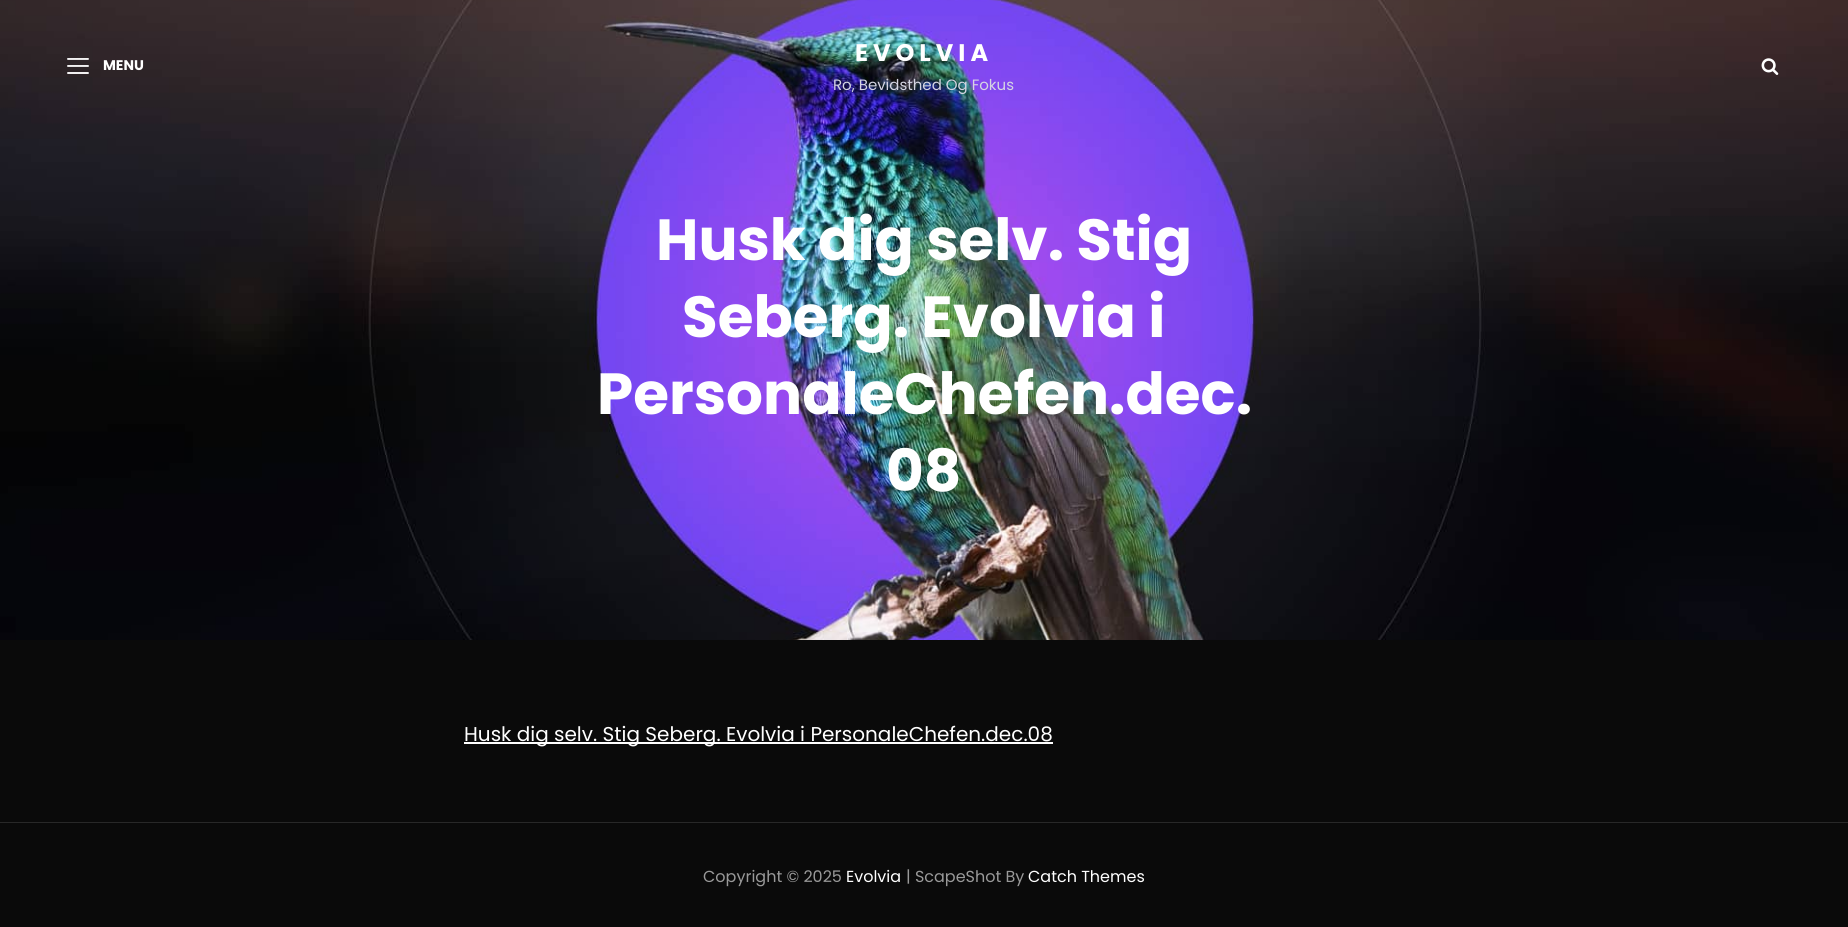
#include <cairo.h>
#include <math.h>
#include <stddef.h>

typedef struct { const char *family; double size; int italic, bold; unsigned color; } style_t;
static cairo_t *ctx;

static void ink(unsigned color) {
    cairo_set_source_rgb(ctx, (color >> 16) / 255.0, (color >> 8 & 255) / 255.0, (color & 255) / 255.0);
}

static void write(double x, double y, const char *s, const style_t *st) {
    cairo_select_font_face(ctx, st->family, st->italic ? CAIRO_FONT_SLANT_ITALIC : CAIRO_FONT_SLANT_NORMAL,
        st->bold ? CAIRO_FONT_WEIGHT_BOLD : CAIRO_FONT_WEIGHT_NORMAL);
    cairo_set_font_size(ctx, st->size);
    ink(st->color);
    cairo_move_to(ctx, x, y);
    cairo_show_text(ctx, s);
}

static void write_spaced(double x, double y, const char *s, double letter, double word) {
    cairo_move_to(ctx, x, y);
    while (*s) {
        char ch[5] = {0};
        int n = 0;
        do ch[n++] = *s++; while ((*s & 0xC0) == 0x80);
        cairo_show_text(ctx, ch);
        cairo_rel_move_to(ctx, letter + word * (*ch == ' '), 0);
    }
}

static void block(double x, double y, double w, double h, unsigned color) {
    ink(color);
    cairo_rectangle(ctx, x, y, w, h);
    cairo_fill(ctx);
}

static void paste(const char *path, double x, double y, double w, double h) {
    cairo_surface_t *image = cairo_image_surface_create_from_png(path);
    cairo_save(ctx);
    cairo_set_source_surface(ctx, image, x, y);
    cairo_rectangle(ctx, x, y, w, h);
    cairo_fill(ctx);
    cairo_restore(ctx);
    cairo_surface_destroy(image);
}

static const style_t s1 = {"Poppins", 14, 0, 1, 0xffffff};
static const style_t s2 = {"Poppins", 15, 0, 0, 0xd5d5e3};
static const style_t s3 = {"Poppins", 58, 0, 1, 0xffffff};
static const style_t s4 = {"Poppins", 20, 0, 0, 0xffffff};
static const style_t s5 = {"Poppins", 16, 0, 0, 0x999999};
static const style_t s6 = {"Poppins", 16, 0, 0, 0xffffff};

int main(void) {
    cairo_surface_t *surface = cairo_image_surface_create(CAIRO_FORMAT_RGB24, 1848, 927);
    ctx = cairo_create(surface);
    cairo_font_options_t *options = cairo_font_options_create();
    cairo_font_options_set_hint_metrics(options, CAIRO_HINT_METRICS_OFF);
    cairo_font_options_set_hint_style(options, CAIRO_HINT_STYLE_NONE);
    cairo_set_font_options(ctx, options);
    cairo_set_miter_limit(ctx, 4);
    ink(0x0a0a0a);
    cairo_paint(ctx);
    paste("pic3.png", 0, 0, 1848, 640);
    paste("pic1.png", 67, 58, 22, 16);
    write(103, 70, "MENU", &s1);
    cairo_set_font_size(ctx, 24);
    write_spaced(855, 61, "EVOLVIA", 5, 0);
    write(833, 90, "Ro, Bevidsthed Og Fokus", &s2);
    paste("pic2.png", 1761, 58, 18, 17);
    write(656, 260, "Husk dig selv. Stig", &s3);
    write(682, 337, "Seberg. Evolvia i", &s3);
    write(597, 414, "PersonaleChefen.dec.", &s3);
    write(886, 491, "08", &s3);
    block(464, 742, 589, 2, 0xffffff);
    write(464, 741, "Husk dig selv. Stig Seberg. Evolvia i PersonaleChefen.dec.08", &s4);
    block(0, 822, 1848, 1, 0x282828);
    write(703, 882, "Copyright © 2025", &s5);
    write(846, 882, "Evolvia", &s6);
    write(906, 882, "| ScapeShot By", &s5);
    write(1028, 882, "Catch Themes", &s6);
    cairo_surface_write_to_png(surface, "screenshot.png");
    cairo_font_options_destroy(options);
    cairo_destroy(ctx);
    cairo_surface_destroy(surface);
    return 0;
}
